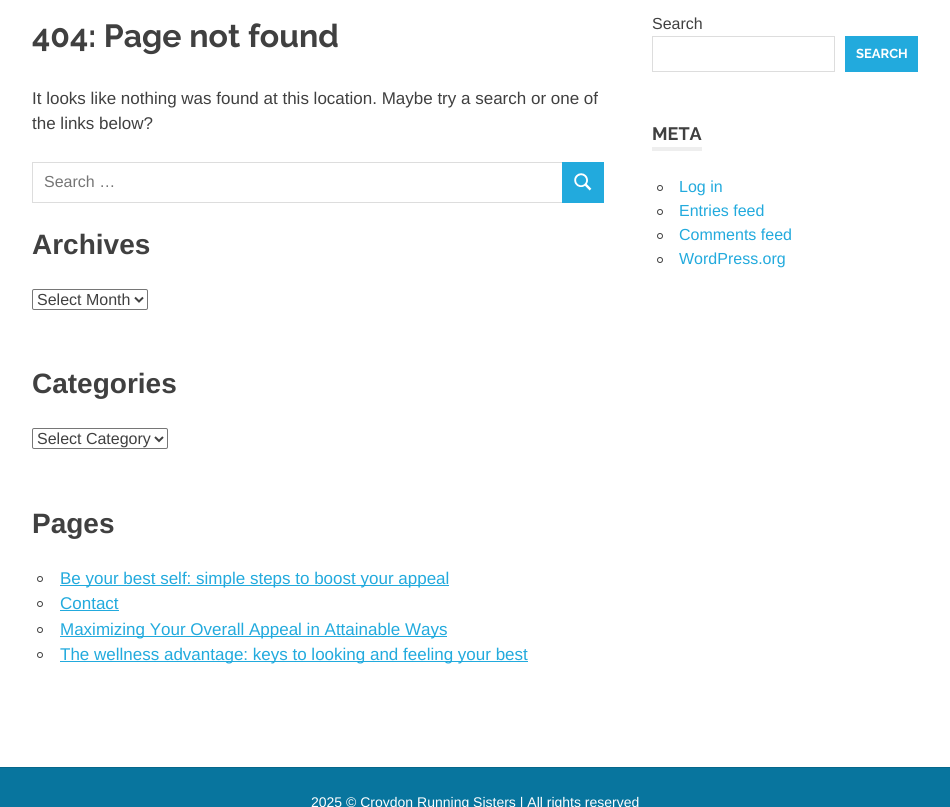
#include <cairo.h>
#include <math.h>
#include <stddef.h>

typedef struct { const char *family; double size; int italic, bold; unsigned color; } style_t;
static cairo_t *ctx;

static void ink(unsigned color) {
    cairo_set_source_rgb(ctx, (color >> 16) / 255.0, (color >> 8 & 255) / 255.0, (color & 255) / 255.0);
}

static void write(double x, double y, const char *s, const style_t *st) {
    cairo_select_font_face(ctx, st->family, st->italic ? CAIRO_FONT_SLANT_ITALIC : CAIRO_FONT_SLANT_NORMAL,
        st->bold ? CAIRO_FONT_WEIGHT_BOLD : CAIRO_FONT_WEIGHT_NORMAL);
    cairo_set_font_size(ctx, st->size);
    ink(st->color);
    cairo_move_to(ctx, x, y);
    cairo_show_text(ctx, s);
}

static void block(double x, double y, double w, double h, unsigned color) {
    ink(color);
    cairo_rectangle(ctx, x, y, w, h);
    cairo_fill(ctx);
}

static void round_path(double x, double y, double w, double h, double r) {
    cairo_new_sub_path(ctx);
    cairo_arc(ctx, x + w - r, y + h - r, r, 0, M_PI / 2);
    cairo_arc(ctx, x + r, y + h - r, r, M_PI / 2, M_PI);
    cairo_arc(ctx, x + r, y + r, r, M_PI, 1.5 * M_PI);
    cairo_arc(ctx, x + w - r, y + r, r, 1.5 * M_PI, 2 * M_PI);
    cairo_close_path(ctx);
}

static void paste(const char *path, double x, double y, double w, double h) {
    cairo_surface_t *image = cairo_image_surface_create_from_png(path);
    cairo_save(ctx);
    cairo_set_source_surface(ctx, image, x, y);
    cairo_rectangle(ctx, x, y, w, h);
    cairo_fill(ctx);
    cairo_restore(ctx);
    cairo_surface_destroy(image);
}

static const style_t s1 = {"Raleway", 32, 0, 1, 0x404040};
static const style_t s2 = {"Liberation Sans", 17, 0, 0, 0x404040};
static const style_t s3 = {"Liberation Sans", 16, 0, 0, 0x757575};
static const style_t s4 = {"Liberation Sans", 28, 0, 1, 0x404040};
static const style_t s5 = {"Liberation Sans", 16, 0, 0, 0x404040};
static const style_t s6 = {"Liberation Sans", 17, 0, 0, 0x22aadd};
static const style_t s7 = {"Raleway", 13, 0, 1, 0xffffff};
static const style_t s8 = {"Raleway", 18, 0, 1, 0x404040};
static const style_t s9 = {"Liberation Sans", 16, 0, 0, 0x22aadd};
static const style_t s10 = {"Liberation Sans", 14, 0, 0, 0xffffff};

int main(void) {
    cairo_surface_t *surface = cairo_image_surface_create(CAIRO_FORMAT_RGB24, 950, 807);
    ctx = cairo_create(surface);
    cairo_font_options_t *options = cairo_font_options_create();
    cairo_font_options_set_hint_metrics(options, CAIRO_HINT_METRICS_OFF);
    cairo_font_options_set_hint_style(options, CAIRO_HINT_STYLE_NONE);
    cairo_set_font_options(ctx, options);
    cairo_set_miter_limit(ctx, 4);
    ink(0xffffff);
    cairo_paint(ctx);
    write(32, 47, "404: Page not found", &s1);
    write(32, 104, "It looks like nothing was found at this location. Maybe try a search or one of", &s2);
    write(32, 129, "the links below?", &s2);
    cairo_rectangle(ctx, 32.5, 162.5, 530, 40);
    ink(0xdddddd);
    cairo_set_line_width(ctx, 1);
    cairo_stroke(ctx);
    write(44, 187, "Search …", &s3);
    block(562, 162, 42, 41, 0x22aadd);
    paste("pic1.png", 574, 173, 18, 18);
    write(32, 254, "Archives", &s4);
    round_path(32.5, 289.5, 115, 20, 1.5);
    ink(0x767676);
    cairo_stroke(ctx);
    cairo_new_path(ctx);
    cairo_move_to(ctx, 135, 297.5);
    cairo_line_to(ctx, 139, 301.5);
    cairo_line_to(ctx, 143, 297.5);
    ink(0x404040);
    cairo_set_line_width(ctx, 2);
    cairo_stroke(ctx);
    write(37, 305, "Select Month", &s5);
    write(32, 393, "Categories", &s4);
    round_path(32.5, 428.5, 135, 20, 1.5);
    ink(0x767676);
    cairo_set_line_width(ctx, 1);
    cairo_stroke(ctx);
    cairo_new_path(ctx);
    cairo_move_to(ctx, 155, 437);
    cairo_line_to(ctx, 159, 441);
    cairo_line_to(ctx, 163, 437);
    ink(0x404040);
    cairo_set_line_width(ctx, 2);
    cairo_stroke(ctx);
    write(37, 444, "Select Category", &s5);
    write(32, 533, "Pages", &s4);
    cairo_new_path(ctx);
    cairo_arc(ctx, 40, 579, 2.5, 0, 2 * M_PI);
    cairo_set_line_width(ctx, 1);
    cairo_stroke(ctx);
    block(60, 585, 389, 1, 0x22aadd);
    write(60, 584, "Be your best self: simple steps to boost your appeal", &s6);
    cairo_new_path(ctx);
    cairo_arc(ctx, 40, 604, 2.5, 0, 2 * M_PI);
    ink(0x404040);
    cairo_stroke(ctx);
    write(60, 609, "Contact", &s6);
    block(60, 610, 59, 1, 0x22aadd);
    cairo_new_path(ctx);
    cairo_arc(ctx, 40, 630, 2.5, 0, 2 * M_PI);
    ink(0x404040);
    cairo_stroke(ctx);
    block(60, 636, 387, 1, 0x22aadd);
    write(60, 635, "Maximizing Your Overall Appeal in Attainable Ways", &s6);
    cairo_new_path(ctx);
    cairo_arc(ctx, 40, 655, 2.5, 0, 2 * M_PI);
    ink(0x404040);
    cairo_stroke(ctx);
    block(60, 661, 468, 1, 0x22aadd);
    write(60, 660, "The wellness advantage: keys to looking and feeling your best", &s6);
    write(652, 29, "Search", &s5);
    cairo_rectangle(ctx, 652.5, 36.5, 182, 35);
    ink(0xdddddd);
    cairo_stroke(ctx);
    block(845, 36, 73, 36, 0x22aadd);
    write(856, 58, "SEARCH", &s7);
    block(652, 147, 50, 4, 0xeeeeee);
    write(652, 140, "META", &s8);
    cairo_new_path(ctx);
    cairo_arc(ctx, 660, 188, 2.5, 0, 2 * M_PI);
    cairo_stroke(ctx);
    write(679, 192, "Log in", &s9);
    cairo_new_path(ctx);
    cairo_arc(ctx, 660, 212, 2.5, 0, 2 * M_PI);
    ink(0x404040);
    cairo_stroke(ctx);
    write(679, 216, "Entries feed", &s9);
    cairo_new_path(ctx);
    cairo_arc(ctx, 660, 236, 2.5, 0, 2 * M_PI);
    ink(0x404040);
    cairo_stroke(ctx);
    write(679, 240, "Comments feed", &s9);
    cairo_new_path(ctx);
    cairo_arc(ctx, 660, 260, 2.5, 0, 2 * M_PI);
    ink(0x404040);
    cairo_stroke(ctx);
    write(679, 264, "WordPress.org", &s9);
    block(0, 768, 950, 39, 0x08759e);
    block(0, 767, 950, 1, 0x07678b);
    write(311, 807, "2025 © Croydon Running Sisters | All rights reserved", &s10);
    cairo_surface_write_to_png(surface, "screenshot.png");
    cairo_font_options_destroy(options);
    cairo_destroy(ctx);
    cairo_surface_destroy(surface);
    return 0;
}
